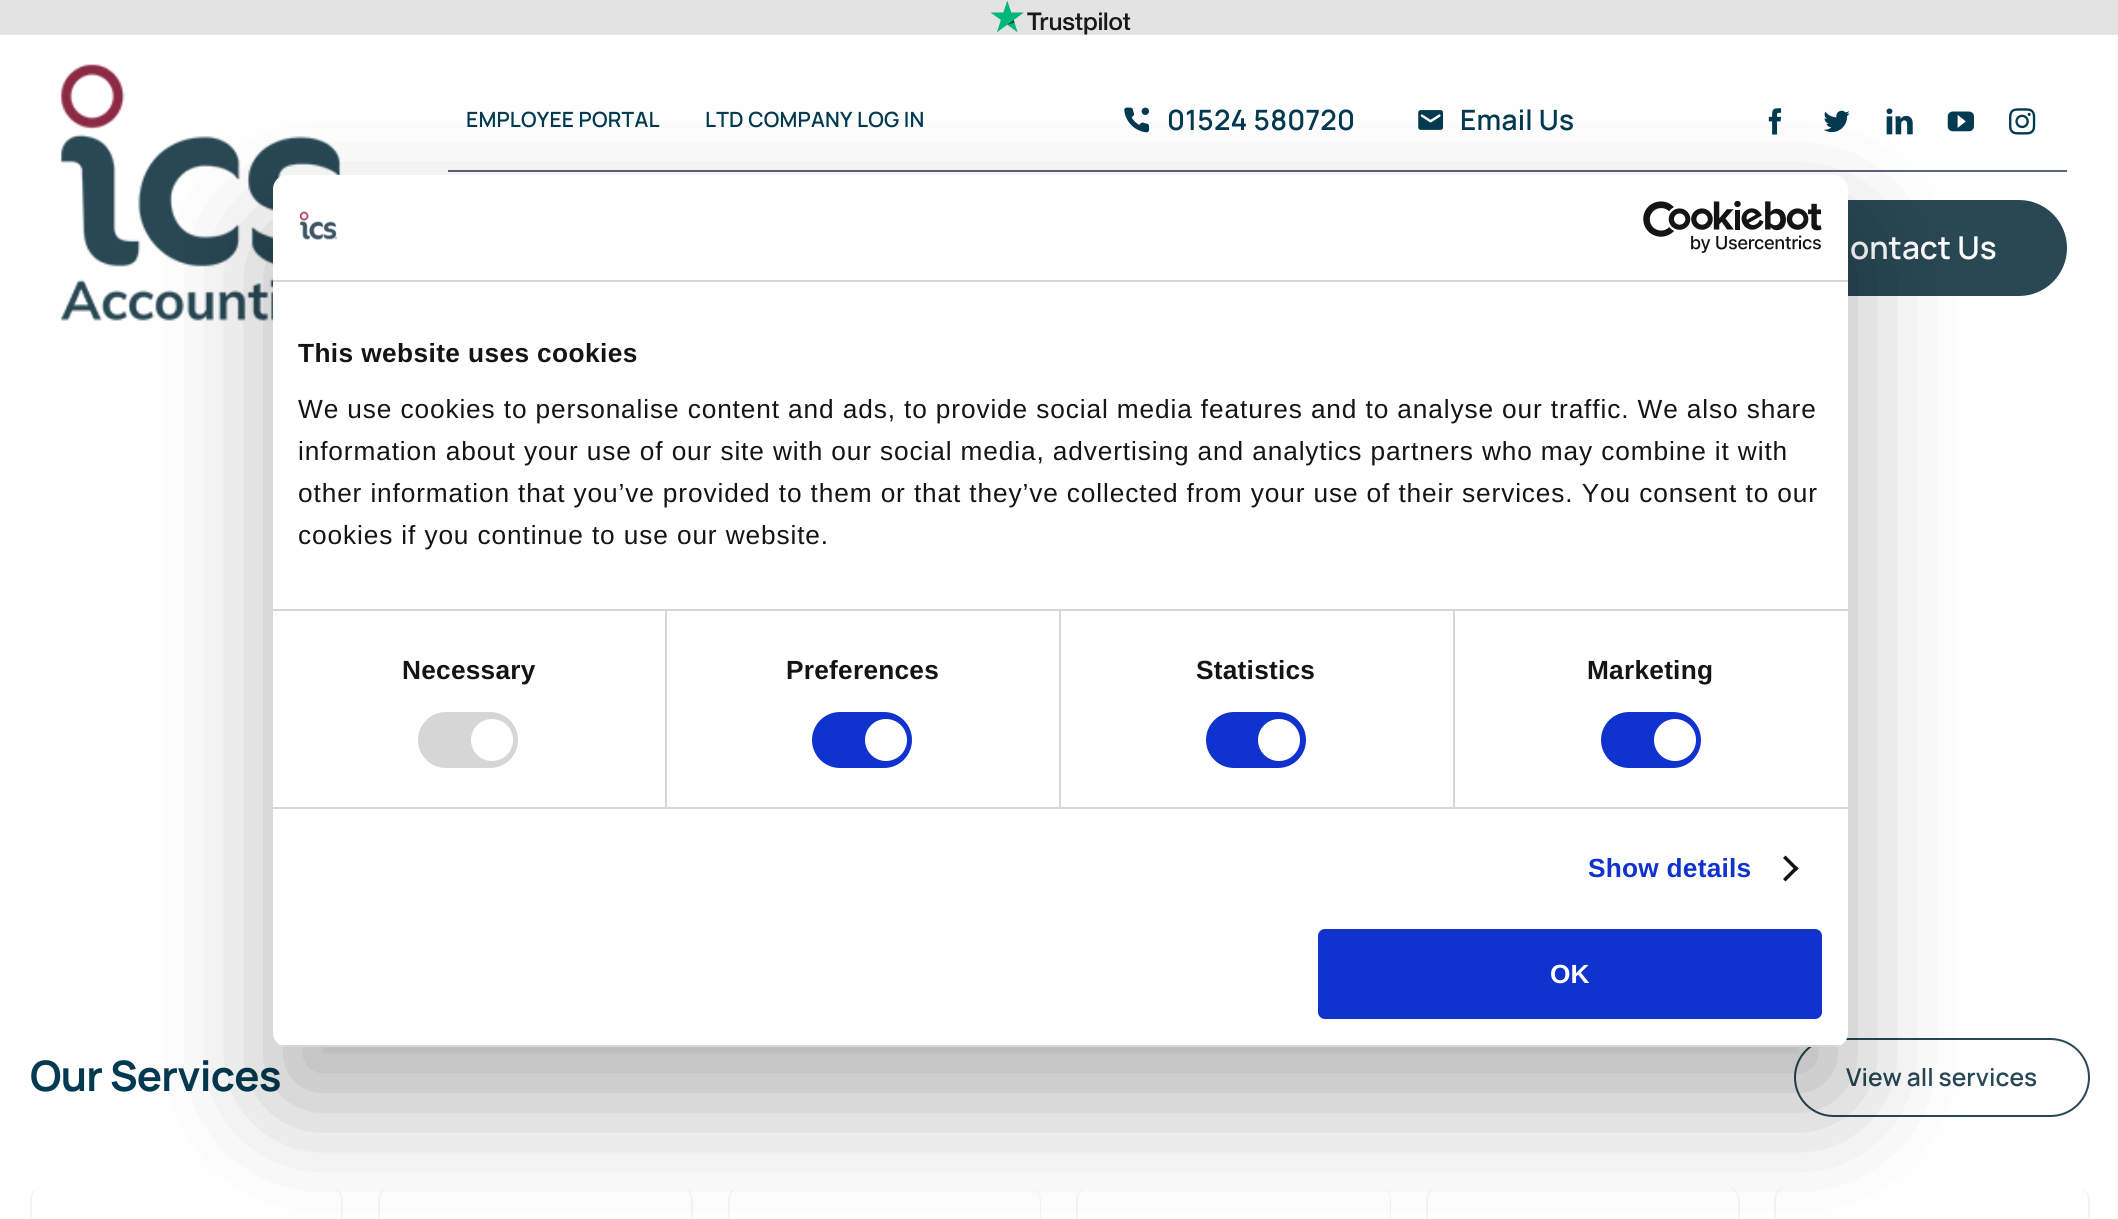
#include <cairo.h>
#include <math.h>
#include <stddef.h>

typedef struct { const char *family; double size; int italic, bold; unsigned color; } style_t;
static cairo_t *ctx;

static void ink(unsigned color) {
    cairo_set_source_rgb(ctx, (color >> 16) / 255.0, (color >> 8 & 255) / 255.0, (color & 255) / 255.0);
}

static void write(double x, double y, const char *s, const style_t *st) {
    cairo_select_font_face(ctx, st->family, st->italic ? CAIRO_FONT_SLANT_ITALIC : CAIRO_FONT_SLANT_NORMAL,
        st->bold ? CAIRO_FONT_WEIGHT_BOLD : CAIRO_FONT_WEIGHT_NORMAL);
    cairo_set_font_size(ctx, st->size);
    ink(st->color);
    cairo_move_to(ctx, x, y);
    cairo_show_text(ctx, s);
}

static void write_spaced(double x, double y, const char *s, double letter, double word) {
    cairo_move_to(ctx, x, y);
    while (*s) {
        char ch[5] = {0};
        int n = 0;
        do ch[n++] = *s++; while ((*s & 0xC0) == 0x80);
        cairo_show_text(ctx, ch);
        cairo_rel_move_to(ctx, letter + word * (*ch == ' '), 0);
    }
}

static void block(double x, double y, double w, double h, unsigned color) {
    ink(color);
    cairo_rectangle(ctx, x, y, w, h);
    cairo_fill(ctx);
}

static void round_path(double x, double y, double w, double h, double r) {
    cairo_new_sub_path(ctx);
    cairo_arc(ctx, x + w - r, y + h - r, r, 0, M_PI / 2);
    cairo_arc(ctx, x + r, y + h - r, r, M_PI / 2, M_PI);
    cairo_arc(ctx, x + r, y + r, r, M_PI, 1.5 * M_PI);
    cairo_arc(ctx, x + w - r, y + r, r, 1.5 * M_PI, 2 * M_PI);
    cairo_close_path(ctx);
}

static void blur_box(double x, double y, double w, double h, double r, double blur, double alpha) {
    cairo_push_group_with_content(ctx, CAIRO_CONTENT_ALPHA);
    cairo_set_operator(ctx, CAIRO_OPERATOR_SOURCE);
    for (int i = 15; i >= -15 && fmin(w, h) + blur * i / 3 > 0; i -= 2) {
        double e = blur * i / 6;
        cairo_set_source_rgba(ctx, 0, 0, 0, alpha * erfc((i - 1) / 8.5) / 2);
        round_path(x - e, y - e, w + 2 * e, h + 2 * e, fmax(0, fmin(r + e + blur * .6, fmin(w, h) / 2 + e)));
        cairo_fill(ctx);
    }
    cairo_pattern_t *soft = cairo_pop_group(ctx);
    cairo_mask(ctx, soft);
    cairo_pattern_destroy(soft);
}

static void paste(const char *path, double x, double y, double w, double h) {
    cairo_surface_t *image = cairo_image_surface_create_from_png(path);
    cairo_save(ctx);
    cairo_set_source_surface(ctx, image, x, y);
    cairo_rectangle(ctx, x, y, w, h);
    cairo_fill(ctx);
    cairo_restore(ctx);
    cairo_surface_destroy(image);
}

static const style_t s1 = {"Manrope SemiBold", 31.5, 0, 0, 0xffffff};
static const style_t s2 = {"Manrope SemiBold", 24.5, 0, 0, 0x284854};
static const style_t s3 = {"Liberation Sans", 26.25, 0, 1, 0xffffff};

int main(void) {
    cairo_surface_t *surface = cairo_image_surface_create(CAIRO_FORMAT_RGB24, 2118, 1219);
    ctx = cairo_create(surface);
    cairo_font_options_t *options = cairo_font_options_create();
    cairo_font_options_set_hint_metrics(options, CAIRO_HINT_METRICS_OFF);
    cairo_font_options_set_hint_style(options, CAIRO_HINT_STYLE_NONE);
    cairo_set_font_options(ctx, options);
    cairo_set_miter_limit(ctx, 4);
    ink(0xe3e3e3);
    cairo_paint(ctx);
    paste("pic1.png", 990, 0, 141, 35);
    block(0, 35, 2118, 1184, 0xffffff);
    paste("pic2.png", 60, 64, 282, 257);
    block(448, 170, 1619, 2, 0x59667d);
    cairo_select_font_face(ctx, "Manrope SemiBold", CAIRO_FONT_SLANT_NORMAL, CAIRO_FONT_WEIGHT_NORMAL);
    cairo_set_font_size(ctx, 21);
    ink(0x023a51);
    write_spaced(466, 127, "EMPLOYEE PORTAL", 0.2, 0);
    write_spaced(705, 127, "LTD COMPANY LOG IN", 0.2, 0);
    paste("pic3.png", 1124, 107, 26, 26);
    cairo_set_font_size(ctx, 28);
    write_spaced(1167, 130, "01524 580720", 0.25, 0);
    paste("pic4.png", 1418, 110, 26, 20);
    write_spaced(1460, 130, "Email Us", 0.25, 0);
    paste("pic5.png", 1768, 108, 14, 27);
    paste("pic6.png", 1823, 110, 27, 23);
    paste("pic7.png", 1886, 108, 27, 27);
    paste("pic8.png", 1947, 111, 27, 21);
    paste("pic9.png", 2009, 108, 27, 27);
    ink(0x284854);
    round_path(1757, 200, 310, 96, 48);
    cairo_fill(ctx);
    write(1850, 259, "ontact Us", &s1);
    cairo_select_font_face(ctx, "Manrope", CAIRO_FONT_SLANT_NORMAL, CAIRO_FONT_WEIGHT_BOLD);
    cairo_set_font_size(ctx, 42);
    ink(0x023a51);
    write_spaced(30, 1091, "Our Services", -0.75, 0);
    round_path(1795, 1039, 294, 77, 38.5);
    ink(0x284854);
    cairo_stroke(ctx);
    write(1846, 1086, "View all services", &s2);
    ink(0xf5f5f5);
    cairo_set_fill_rule(ctx, CAIRO_FILL_RULE_EVEN_ODD);
    cairo_new_path(ctx);
    cairo_move_to(ctx, 44, 1186);
    cairo_line_to(ctx, 329, 1186);
    cairo_curve_to(ctx, 337, 1186, 343, 1193, 343, 1200);
    cairo_line_to(ctx, 343, 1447);
    cairo_curve_to(ctx, 343, 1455, 337, 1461, 329, 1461);
    cairo_line_to(ctx, 44, 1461);
    cairo_curve_to(ctx, 36, 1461, 30, 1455, 30, 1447);
    cairo_line_to(ctx, 30, 1200);
    cairo_curve_to(ctx, 30, 1193, 36, 1186, 44, 1186);
    cairo_close_path(ctx);
    cairo_move_to(ctx, 44, 1186);
    cairo_line_to(ctx, 329, 1186);
    cairo_curve_to(ctx, 336, 1186, 341, 1193, 341, 1200);
    cairo_line_to(ctx, 341, 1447);
    cairo_curve_to(ctx, 341, 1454, 336, 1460, 329, 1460);
    cairo_line_to(ctx, 44, 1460);
    cairo_curve_to(ctx, 37, 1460, 32, 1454, 32, 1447);
    cairo_line_to(ctx, 32, 1200);
    cairo_curve_to(ctx, 32, 1193, 37, 1186, 44, 1186);
    cairo_close_path(ctx);
    cairo_fill(ctx);
    cairo_new_path(ctx);
    cairo_move_to(ctx, 392, 1186);
    cairo_line_to(ctx, 679, 1186);
    cairo_curve_to(ctx, 687, 1186, 693, 1193, 693, 1200);
    cairo_line_to(ctx, 693, 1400);
    cairo_curve_to(ctx, 693, 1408, 687, 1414, 679, 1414);
    cairo_line_to(ctx, 392, 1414);
    cairo_curve_to(ctx, 384, 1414, 378, 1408, 378, 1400);
    cairo_line_to(ctx, 378, 1200);
    cairo_curve_to(ctx, 378, 1193, 384, 1186, 392, 1186);
    cairo_close_path(ctx);
    cairo_move_to(ctx, 392, 1186);
    cairo_line_to(ctx, 679, 1186);
    cairo_curve_to(ctx, 686, 1186, 691, 1193, 691, 1200);
    cairo_line_to(ctx, 691, 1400);
    cairo_curve_to(ctx, 691, 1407, 686, 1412, 679, 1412);
    cairo_line_to(ctx, 392, 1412);
    cairo_curve_to(ctx, 385, 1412, 380, 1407, 380, 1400);
    cairo_line_to(ctx, 380, 1200);
    cairo_curve_to(ctx, 380, 1193, 385, 1186, 392, 1186);
    cairo_close_path(ctx);
    cairo_fill(ctx);
    cairo_new_path(ctx);
    cairo_move_to(ctx, 742, 1186);
    cairo_line_to(ctx, 1027, 1186);
    cairo_curve_to(ctx, 1035, 1186, 1041, 1193, 1041, 1200);
    cairo_line_to(ctx, 1041, 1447);
    cairo_curve_to(ctx, 1041, 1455, 1035, 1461, 1027, 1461);
    cairo_line_to(ctx, 742, 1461);
    cairo_curve_to(ctx, 734, 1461, 728, 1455, 728, 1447);
    cairo_line_to(ctx, 728, 1200);
    cairo_curve_to(ctx, 728, 1193, 734, 1186, 742, 1186);
    cairo_close_path(ctx);
    cairo_move_to(ctx, 742, 1186);
    cairo_line_to(ctx, 1027, 1186);
    cairo_curve_to(ctx, 1034, 1186, 1040, 1193, 1040, 1200);
    cairo_line_to(ctx, 1040, 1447);
    cairo_curve_to(ctx, 1040, 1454, 1034, 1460, 1027, 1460);
    cairo_line_to(ctx, 742, 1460);
    cairo_curve_to(ctx, 735, 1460, 730, 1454, 730, 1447);
    cairo_line_to(ctx, 730, 1200);
    cairo_curve_to(ctx, 730, 1193, 735, 1186, 742, 1186);
    cairo_close_path(ctx);
    cairo_fill(ctx);
    ink(0xf4f4f4);
    cairo_new_path(ctx);
    cairo_move_to(ctx, 1090, 1186);
    cairo_line_to(ctx, 1377, 1186);
    cairo_curve_to(ctx, 1385, 1186, 1391, 1193, 1391, 1200);
    cairo_line_to(ctx, 1391, 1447);
    cairo_curve_to(ctx, 1391, 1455, 1385, 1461, 1377, 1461);
    cairo_line_to(ctx, 1090, 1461);
    cairo_curve_to(ctx, 1083, 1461, 1076, 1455, 1076, 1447);
    cairo_line_to(ctx, 1076, 1200);
    cairo_curve_to(ctx, 1076, 1193, 1083, 1186, 1090, 1186);
    cairo_close_path(ctx);
    cairo_move_to(ctx, 1090, 1186);
    cairo_line_to(ctx, 1377, 1186);
    cairo_curve_to(ctx, 1384, 1186, 1390, 1193, 1390, 1200);
    cairo_line_to(ctx, 1390, 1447);
    cairo_curve_to(ctx, 1390, 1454, 1384, 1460, 1377, 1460);
    cairo_line_to(ctx, 1090, 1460);
    cairo_curve_to(ctx, 1083, 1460, 1078, 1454, 1078, 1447);
    cairo_line_to(ctx, 1078, 1200);
    cairo_curve_to(ctx, 1078, 1193, 1083, 1186, 1090, 1186);
    cairo_close_path(ctx);
    cairo_fill(ctx);
    cairo_new_path(ctx);
    cairo_move_to(ctx, 1440, 1186);
    cairo_line_to(ctx, 1726, 1186);
    cairo_curve_to(ctx, 1733, 1186, 1740, 1193, 1740, 1200);
    cairo_line_to(ctx, 1740, 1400);
    cairo_curve_to(ctx, 1740, 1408, 1733, 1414, 1726, 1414);
    cairo_line_to(ctx, 1440, 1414);
    cairo_curve_to(ctx, 1433, 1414, 1426, 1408, 1426, 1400);
    cairo_line_to(ctx, 1426, 1200);
    cairo_curve_to(ctx, 1426, 1193, 1433, 1186, 1440, 1186);
    cairo_close_path(ctx);
    cairo_move_to(ctx, 1440, 1186);
    cairo_line_to(ctx, 1726, 1186);
    cairo_curve_to(ctx, 1732, 1186, 1738, 1193, 1738, 1200);
    cairo_line_to(ctx, 1738, 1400);
    cairo_curve_to(ctx, 1738, 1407, 1732, 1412, 1726, 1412);
    cairo_line_to(ctx, 1440, 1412);
    cairo_curve_to(ctx, 1433, 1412, 1428, 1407, 1428, 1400);
    cairo_line_to(ctx, 1428, 1200);
    cairo_curve_to(ctx, 1428, 1193, 1433, 1186, 1440, 1186);
    cairo_close_path(ctx);
    cairo_fill(ctx);
    cairo_new_path(ctx);
    cairo_move_to(ctx, 1788, 1186);
    cairo_line_to(ctx, 2076, 1186);
    cairo_curve_to(ctx, 2083, 1186, 2090, 1193, 2090, 1200);
    cairo_line_to(ctx, 2090, 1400);
    cairo_curve_to(ctx, 2090, 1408, 2083, 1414, 2076, 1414);
    cairo_line_to(ctx, 1788, 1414);
    cairo_curve_to(ctx, 1781, 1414, 1774, 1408, 1774, 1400);
    cairo_line_to(ctx, 1774, 1200);
    cairo_curve_to(ctx, 1774, 1193, 1781, 1186, 1788, 1186);
    cairo_close_path(ctx);
    cairo_move_to(ctx, 1788, 1186);
    cairo_line_to(ctx, 2076, 1186);
    cairo_curve_to(ctx, 2082, 1186, 2088, 1193, 2088, 1200);
    cairo_line_to(ctx, 2088, 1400);
    cairo_curve_to(ctx, 2088, 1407, 2082, 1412, 2076, 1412);
    cairo_line_to(ctx, 1788, 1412);
    cairo_curve_to(ctx, 1782, 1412, 1776, 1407, 1776, 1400);
    cairo_line_to(ctx, 1776, 1200);
    cairo_curve_to(ctx, 1776, 1193, 1782, 1186, 1788, 1186);
    cairo_close_path(ctx);
    cairo_fill(ctx);
    ink(0x000000);
    blur_box(273, 231, 1575, 872, 14, 59.5, 0.3);
    ink(0xffffff);
    round_path(273, 175, 1575, 872, 14);
    cairo_fill(ctx);
    block(273, 280, 1575, 2, 0xd6d6d6);
    paste("pic10.png", 299, 211, 39, 30);
    paste("pic11.png", 1643, 201, 179, 52);
    block(273, 609, 1575, 2, 0xd6d6d6);
    cairo_select_font_face(ctx, "Liberation Sans", CAIRO_FONT_SLANT_NORMAL, CAIRO_FONT_WEIGHT_BOLD);
    cairo_set_font_size(ctx, 26.25);
    ink(0x141414);
    write_spaced(298, 362, "This website uses cookies", 0.4, 0);
    cairo_select_font_face(ctx, "Liberation Sans", CAIRO_FONT_SLANT_NORMAL, CAIRO_FONT_WEIGHT_NORMAL);
    write_spaced(298, 418, "We use cookies to personalise content and ads, to provide social media features and to analyse our traffic. We also share", 0.88, 0);
    write_spaced(298, 460, "information about your use of our site with our social media, advertising and analytics partners who may combine it with", 0.88, 0);
    write_spaced(298, 502, "other information that you’ve provided to them or that they’ve collected from your use of their services. You consent to our", 0.88, 0);
    write_spaced(298, 544, "cookies if you continue to use our website.", 0.88, 0);
    block(273, 807, 1575, 2, 0xd6d6d6);
    block(665, 611, 2, 196, 0xd6d6d6);
    cairo_select_font_face(ctx, "Liberation Sans", CAIRO_FONT_SLANT_NORMAL, CAIRO_FONT_WEIGHT_BOLD);
    ink(0x141414);
    write_spaced(402, 679, "Necessary", 0.25, 0);
    ink(0xd6d6d6);
    round_path(418, 712, 100, 56, 28);
    cairo_fill(ctx);
    ink(0xffffff);
    cairo_arc(ctx, 492, 740, 21, 0, 2 * M_PI);
    cairo_fill(ctx);
    block(1059, 611, 2, 196, 0xd6d6d6);
    ink(0x141414);
    write_spaced(786, 679, "Preferences", 0.25, 0);
    ink(0x1032cf);
    round_path(812, 712, 100, 56, 28);
    cairo_fill(ctx);
    ink(0xffffff);
    cairo_arc(ctx, 886, 740, 21, 0, 2 * M_PI);
    cairo_fill(ctx);
    block(1453, 611, 2, 196, 0xd6d6d6);
    ink(0x141414);
    write_spaced(1196, 679, "Statistics", 0.25, 0);
    ink(0x1032cf);
    round_path(1206, 712, 100, 56, 28);
    cairo_fill(ctx);
    ink(0xffffff);
    cairo_arc(ctx, 1279, 740, 21, 0, 2 * M_PI);
    cairo_fill(ctx);
    ink(0x141414);
    write_spaced(1587, 679, "Marketing", 0.25, 0);
    ink(0x1032cf);
    round_path(1601, 712, 100, 56, 28);
    cairo_fill(ctx);
    ink(0xffffff);
    cairo_arc(ctx, 1675, 740, 21, 0, 2 * M_PI);
    cairo_fill(ctx);
    ink(0x1032cf);
    write_spaced(1588, 877, "Show details", 0.25, 0);
    ink(0x141414);
    cairo_set_fill_rule(ctx, CAIRO_FILL_RULE_WINDING);
    cairo_new_path(ctx);
    cairo_move_to(ctx, 1785.5, 855.5);
    cairo_line_to(ctx, 1798.5, 868.5);
    cairo_line_to(ctx, 1796, 871);
    cairo_line_to(ctx, 1783, 858);
    cairo_close_path(ctx);
    cairo_fill(ctx);
    cairo_new_path(ctx);
    cairo_move_to(ctx, 1796, 866);
    cairo_line_to(ctx, 1798.5, 868.5);
    cairo_line_to(ctx, 1785.5, 881.5);
    cairo_line_to(ctx, 1783, 879);
    cairo_close_path(ctx);
    cairo_fill(ctx);
    cairo_save(ctx);
    round_path(273, 175, 1575, 872, 14);
    cairo_clip(ctx);
    block(273, 1045, 1575, 2, 0xd6d6d6);
    cairo_restore(ctx);
    ink(0x1032cf);
    round_path(1320, 931, 500, 86, 5);
    cairo_fill_preserve(ctx);
    cairo_set_line_width(ctx, 4);
    cairo_stroke(ctx);
    write(1550, 983, "OK", &s3);
    cairo_surface_write_to_png(surface, "screenshot.png");
    cairo_font_options_destroy(options);
    cairo_destroy(ctx);
    cairo_surface_destroy(surface);
    return 0;
}
